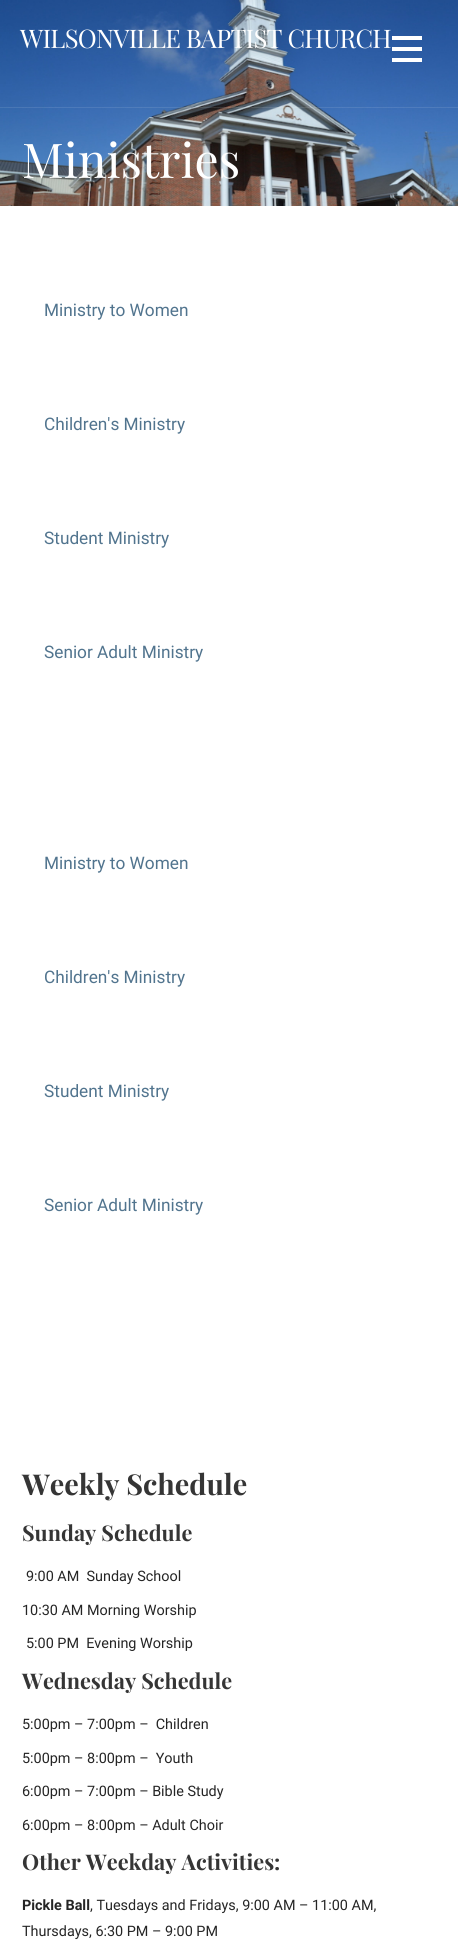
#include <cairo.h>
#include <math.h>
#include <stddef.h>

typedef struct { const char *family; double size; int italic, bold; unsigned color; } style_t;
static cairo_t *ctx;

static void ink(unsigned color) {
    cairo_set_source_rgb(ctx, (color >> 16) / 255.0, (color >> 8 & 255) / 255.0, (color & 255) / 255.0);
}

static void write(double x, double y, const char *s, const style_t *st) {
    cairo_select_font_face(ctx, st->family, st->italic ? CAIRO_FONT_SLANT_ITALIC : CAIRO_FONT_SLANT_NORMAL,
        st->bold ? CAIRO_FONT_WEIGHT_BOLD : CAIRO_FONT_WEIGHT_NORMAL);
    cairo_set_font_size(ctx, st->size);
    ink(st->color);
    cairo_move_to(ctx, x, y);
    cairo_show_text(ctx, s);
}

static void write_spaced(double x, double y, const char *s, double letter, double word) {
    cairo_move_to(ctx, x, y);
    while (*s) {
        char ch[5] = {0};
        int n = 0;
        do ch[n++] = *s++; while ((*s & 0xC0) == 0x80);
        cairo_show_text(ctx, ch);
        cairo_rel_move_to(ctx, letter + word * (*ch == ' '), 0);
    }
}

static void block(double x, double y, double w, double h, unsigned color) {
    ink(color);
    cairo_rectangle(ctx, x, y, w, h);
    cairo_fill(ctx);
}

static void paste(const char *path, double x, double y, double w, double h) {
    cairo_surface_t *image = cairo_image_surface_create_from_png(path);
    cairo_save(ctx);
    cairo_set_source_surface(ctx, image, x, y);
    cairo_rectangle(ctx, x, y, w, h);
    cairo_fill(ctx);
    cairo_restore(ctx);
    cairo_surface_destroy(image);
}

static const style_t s1 = {"Playfair Display", 48, 0, 0, 0xffffff};
static const style_t s2 = {"Roboto", 17.25, 0, 0, 0x51748e};
static const style_t s3 = {"Playfair Display", 28.75, 0, 1, 0x353535};
static const style_t s4 = {"Playfair Display", 21.6, 0, 1, 0x353535};
static const style_t s5 = {"Roboto", 14.4, 0, 0, 0x252525};
static const style_t s6 = {"Roboto", 14.4, 0, 1, 0x252525};

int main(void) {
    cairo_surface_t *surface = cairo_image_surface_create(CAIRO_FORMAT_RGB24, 458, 1959);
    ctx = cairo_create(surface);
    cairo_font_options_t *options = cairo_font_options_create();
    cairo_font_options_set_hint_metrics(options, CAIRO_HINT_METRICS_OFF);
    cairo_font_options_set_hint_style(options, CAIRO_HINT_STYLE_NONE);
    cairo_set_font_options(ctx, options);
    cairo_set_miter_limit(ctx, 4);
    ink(0xffffff);
    cairo_paint(ctx);
    paste("pic1.png", 0, 0, 458, 206);
    cairo_set_source_rgba(ctx, 1, 1, 1, 0.1);
    cairo_rectangle(ctx, 0, 107, 458, 1);
    cairo_fill(ctx);
    cairo_select_font_face(ctx, "Playfair Display", CAIRO_FONT_SLANT_NORMAL, CAIRO_FONT_WEIGHT_NORMAL);
    cairo_set_font_size(ctx, 25.6);
    ink(0xffffff);
    write_spaced(20, 48, "WILSONVILLE BAPTIST CHURCH", -0.75, 0);
    block(392, 36, 30, 4, 0xffffff);
    block(392, 47, 30, 4, 0xffffff);
    block(392, 58, 30, 4, 0xffffff);
    write(22, 178, "Ministries", &s1);
    write(44, 316, "Ministry to Women", &s2);
    write(44, 430, "Children's Ministry", &s2);
    write(44, 544, "Student Ministry", &s2);
    write(44, 658, "Senior Adult Ministry", &s2);
    write(44, 869, "Ministry to Women", &s2);
    write(44, 983, "Children's Ministry", &s2);
    write(44, 1097, "Student Ministry", &s2);
    write(44, 1211, "Senior Adult Ministry", &s2);
    write(22, 1495, "Weekly Schedule", &s3);
    write(22, 1541, "Sunday Schedule", &s4);
    write(26, 1581, "9:00 AM  Sunday School", &s5);
    write(22, 1615, "10:30 AM Morning Worship", &s5);
    write(26, 1648, "5:00 PM  Evening Worship", &s5);
    write(22, 1689, "Wednesday Schedule", &s4);
    write(22, 1729, "5:00pm – 7:00pm –  Children", &s5);
    write(22, 1763, "5:00pm – 8:00pm –  Youth", &s5);
    write(22, 1796, "6:00pm – 7:00pm – Bible Study", &s5);
    write(22, 1830, "6:00pm – 8:00pm – Adult Choir", &s5);
    write(22, 1870, "Other Weekday Activities:", &s4);
    write(22, 1910, "Pickle Ball", &s6);
    write(90, 1910, ", Tuesdays and Fridays, 9:00 AM – 11:00 AM,", &s5);
    write(22, 1936, "Thursdays, 6:30 PM – 9:00 PM", &s5);
    cairo_surface_write_to_png(surface, "screenshot.png");
    cairo_font_options_destroy(options);
    cairo_destroy(ctx);
    cairo_surface_destroy(surface);
    return 0;
}
